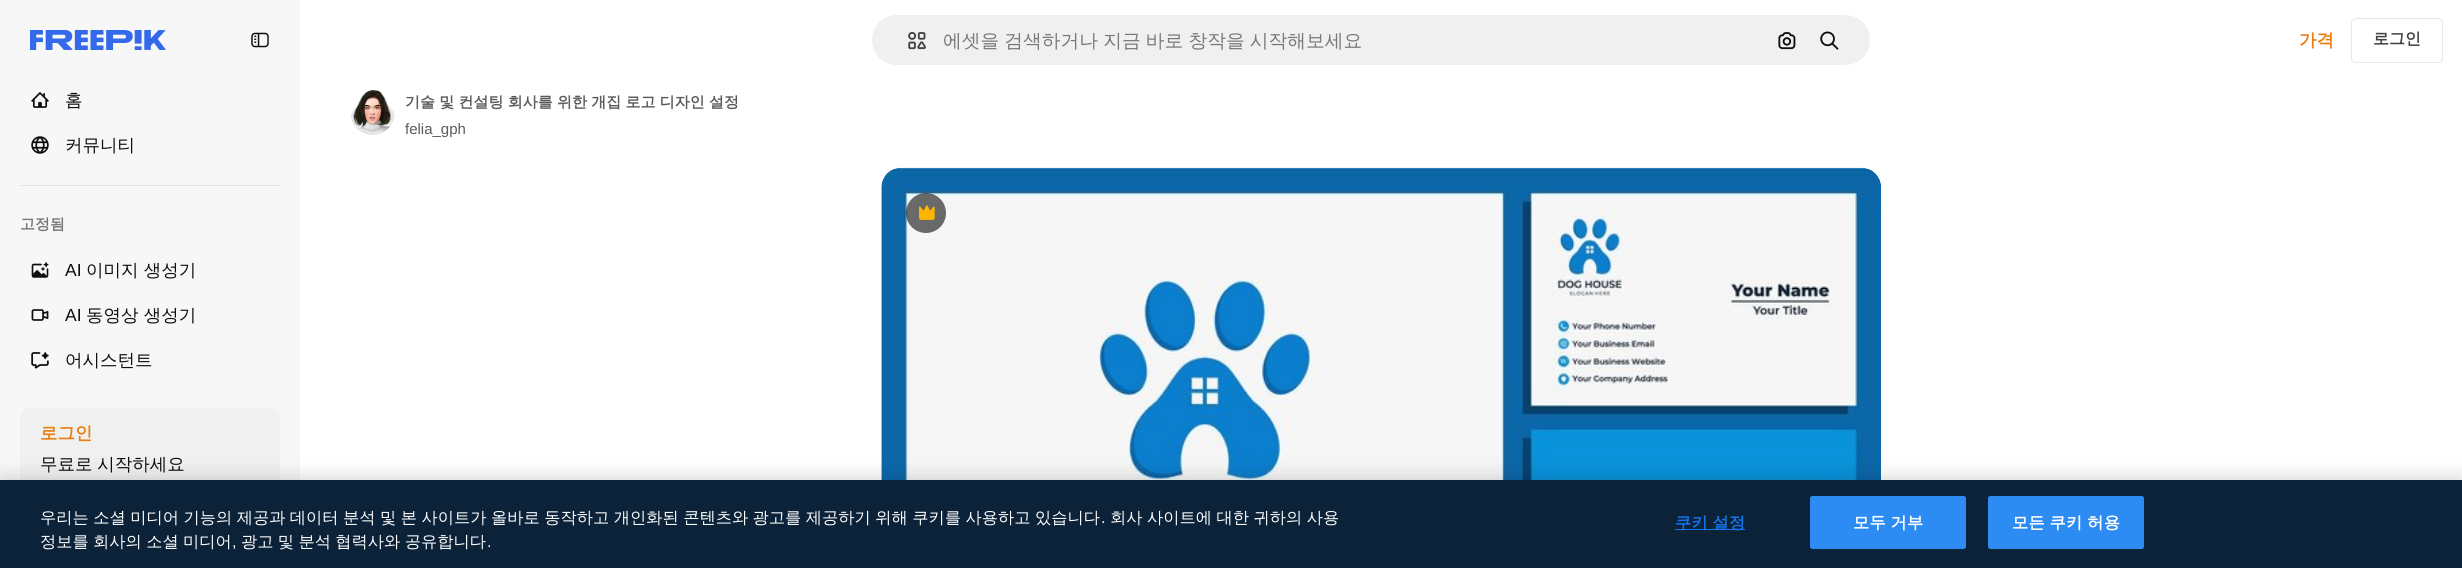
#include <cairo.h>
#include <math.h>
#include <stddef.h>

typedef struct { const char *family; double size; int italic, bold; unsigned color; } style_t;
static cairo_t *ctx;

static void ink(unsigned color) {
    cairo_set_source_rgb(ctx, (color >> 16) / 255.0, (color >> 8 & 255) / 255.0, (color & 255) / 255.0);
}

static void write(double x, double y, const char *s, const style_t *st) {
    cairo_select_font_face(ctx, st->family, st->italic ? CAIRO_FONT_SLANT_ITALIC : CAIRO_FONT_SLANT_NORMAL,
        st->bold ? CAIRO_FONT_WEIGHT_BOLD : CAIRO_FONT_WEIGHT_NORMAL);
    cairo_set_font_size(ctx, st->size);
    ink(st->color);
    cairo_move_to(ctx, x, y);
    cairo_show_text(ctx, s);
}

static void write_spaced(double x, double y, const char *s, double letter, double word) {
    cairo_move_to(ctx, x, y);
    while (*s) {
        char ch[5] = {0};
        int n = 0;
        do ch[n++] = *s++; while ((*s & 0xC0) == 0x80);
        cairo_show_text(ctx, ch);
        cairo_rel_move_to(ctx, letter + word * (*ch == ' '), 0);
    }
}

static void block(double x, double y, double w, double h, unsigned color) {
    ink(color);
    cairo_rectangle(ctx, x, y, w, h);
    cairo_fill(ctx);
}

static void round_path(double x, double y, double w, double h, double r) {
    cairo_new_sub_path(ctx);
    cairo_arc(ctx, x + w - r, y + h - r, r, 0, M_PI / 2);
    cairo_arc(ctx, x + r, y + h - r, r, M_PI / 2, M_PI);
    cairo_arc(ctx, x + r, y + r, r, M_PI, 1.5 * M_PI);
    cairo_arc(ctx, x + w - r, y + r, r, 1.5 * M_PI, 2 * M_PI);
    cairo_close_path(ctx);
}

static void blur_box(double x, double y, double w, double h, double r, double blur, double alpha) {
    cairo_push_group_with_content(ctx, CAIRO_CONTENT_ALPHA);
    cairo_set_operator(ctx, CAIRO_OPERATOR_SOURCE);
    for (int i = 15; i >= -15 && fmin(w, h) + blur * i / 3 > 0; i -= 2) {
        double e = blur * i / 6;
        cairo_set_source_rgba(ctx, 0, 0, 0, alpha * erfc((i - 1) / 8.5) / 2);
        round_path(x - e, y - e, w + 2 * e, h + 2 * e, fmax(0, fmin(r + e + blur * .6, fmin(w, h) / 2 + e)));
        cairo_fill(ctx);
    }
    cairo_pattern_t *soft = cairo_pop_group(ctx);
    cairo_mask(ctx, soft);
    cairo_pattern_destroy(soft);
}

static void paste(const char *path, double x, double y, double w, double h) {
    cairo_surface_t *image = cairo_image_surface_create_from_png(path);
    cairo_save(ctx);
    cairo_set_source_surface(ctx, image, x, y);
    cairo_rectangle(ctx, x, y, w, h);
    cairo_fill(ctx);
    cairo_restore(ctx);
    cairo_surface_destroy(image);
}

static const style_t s1 = {"WenQuanYi Zen Hei Medium", 17.5, 0, 0, 0x0d0d0d};
static const style_t s2 = {"WenQuanYi Zen Hei", 15, 0, 1, 0x787878};
static const style_t s3 = {"Liberation Sans", 17.5, 0, 0, 0x0d0d0d};
static const style_t s4 = {"WenQuanYi Zen Hei", 17.5, 0, 1, 0xea7e11};
static const style_t s5 = {"WenQuanYi Zen Hei", 16, 0, 1, 0x424242};
static const style_t s6 = {"Liberation Sans", 15, 0, 0, 0x5c5c5c};
static const style_t s7 = {"Liberation Sans", 16.25, 0, 0, 0xffffff};

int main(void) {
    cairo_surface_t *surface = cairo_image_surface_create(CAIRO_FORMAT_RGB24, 2462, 568);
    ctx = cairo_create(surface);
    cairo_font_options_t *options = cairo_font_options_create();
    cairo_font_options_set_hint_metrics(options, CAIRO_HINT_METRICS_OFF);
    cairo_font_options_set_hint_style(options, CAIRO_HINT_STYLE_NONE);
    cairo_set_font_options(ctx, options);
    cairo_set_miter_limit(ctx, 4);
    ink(0xffffff);
    cairo_paint(ctx);
    block(0, 0, 300, 480, 0xf7f7f7);
    paste("pic1.png", 30, 30, 136, 20);
    paste("pic2.png", 251, 32, 18, 16);
    paste("pic3.png", 31, 92, 18, 16);
    write(65, 106, "홈", &s1);
    paste("pic4.png", 31, 136, 18, 18);
    write(65, 151, "커뮤니티", &s1);
    block(20, 185, 260, 1, 0xe0e0e0);
    write(20, 229, "고정됨", &s2);
    paste("pic5.png", 31, 262, 18, 16);
    write(65, 276, "AI", &s3);
    write(86, 276, "이미지 생성기", &s1);
    paste("pic6.png", 31, 309, 18, 12);
    write(65, 321, "AI", &s3);
    write(86, 321, "동영상 생성기", &s1);
    paste("pic7.png", 31, 352, 18, 17);
    write(65, 366, "어시스턴트", &s1);
    ink(0xf0f0f0);
    round_path(20, 408, 260, 81, 10);
    cairo_fill(ctx);
    write(40, 439, "로그인", &s4);
    cairo_select_font_face(ctx, "WenQuanYi Zen Hei Medium", CAIRO_FONT_SLANT_NORMAL, CAIRO_FONT_WEIGHT_NORMAL);
    ink(0x0d0d0d);
    write_spaced(40, 470, "무료로 시작하세요", 0, -0.4);
    ink(0xf0f0f0);
    round_path(871.5, 14.5, 999, 51, 25.5);
    cairo_fill_preserve(ctx);
    ink(0xffffff);
    cairo_set_line_width(ctx, 1);
    cairo_stroke(ctx);
    paste("pic8.png", 908, 31, 18, 19);
    cairo_set_font_size(ctx, 18.75);
    ink(0x787878);
    write_spaced(943, 47, "에셋을 검색하거나 지금 바로 창작을 시작해보세요", 0, -0.5);
    paste("pic9.png", 1778, 32, 18, 18);
    paste("pic10.png", 1820, 31, 19, 19);
    write(2299, 46, "가격", &s4);
    round_path(2351.5, 18.5, 91, 44, 4.5);
    ink(0xe7e7e7);
    cairo_stroke(ctx);
    write(2373, 44, "로그인", &s5);
    paste("pic11.png", 350, 90, 45, 45);
    cairo_set_font_size(ctx, 15);
    ink(0x5c5c5c);
    write_spaced(405, 107, "기술 및 컨설팅 회사를 위한 개집 로고 디자인 설정", 0, -0.25);
    write(405, 134, "felia_gph", &s6);
    paste("pic12.png", 881, 167, 1000, 313);
    cairo_set_source_rgba(ctx, 0.051, 0.051, 0.051, 0.6);
    cairo_arc(ctx, 926, 213, 20, 0, 2 * M_PI);
    cairo_fill(ctx);
    paste("pic13.png", 919, 205, 16, 15);
    ink(0x000000);
    blur_box(0, 480, 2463, 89, 0, 11, 0.2);
    block(0, 480, 2462, 88, 0x0b2239);
    cairo_select_font_face(ctx, "WenQuanYi Zen Hei Medium", CAIRO_FONT_SLANT_NORMAL, CAIRO_FONT_WEIGHT_NORMAL);
    cairo_set_font_size(ctx, 16.25);
    ink(0xffffff);
    write_spaced(40, 523, "우리는 소셜 미디어 기능의 제공과 데이터 분석 및 본 사이트가 올바로 동작하고 개인화된 콘텐츠와 광고를 제공하기 위해 쿠키를 사용하고 있습니다", 0, -0.4);
    write(1101, 523, ".", &s7);
    cairo_select_font_face(ctx, "WenQuanYi Zen Hei Medium", CAIRO_FONT_SLANT_NORMAL, CAIRO_FONT_WEIGHT_NORMAL);
    write_spaced(1110, 523, "회사 사이트에 대한 귀하의 사용", 0, -0.4);
    write_spaced(40, 547, "정보를 회사의 소셜 미디어", 0, -0.5);
    write(232, 547, ",", &s7);
    cairo_select_font_face(ctx, "WenQuanYi Zen Hei Medium", CAIRO_FONT_SLANT_NORMAL, CAIRO_FONT_WEIGHT_NORMAL);
    write_spaced(241, 547, "광고 및 분석 협력사와 공유합니다", 0, -0.5);
    write(487, 547, ".", &s7);
    block(1675, 529, 70, 1, 0x1273eb);
    cairo_select_font_face(ctx, "WenQuanYi Zen Hei", CAIRO_FONT_SLANT_NORMAL, CAIRO_FONT_WEIGHT_BOLD);
    write_spaced(1675, 528, "쿠키 설정", 0.25, -0.5);
    ink(0x2c8cf4);
    round_path(1810.5, 496.5, 155, 52, 2);
    cairo_fill_preserve(ctx);
    cairo_stroke(ctx);
    ink(0xffffff);
    write_spaced(1853, 528, "모두 거부", 0.25, -0.5);
    ink(0x2c8cf4);
    round_path(1988.5, 496.5, 155, 52, 2);
    cairo_fill_preserve(ctx);
    cairo_stroke(ctx);
    ink(0xffffff);
    write_spaced(2012, 528, "모든 쿠키 허용", 0.25, -0.5);
    cairo_surface_write_to_png(surface, "screenshot.png");
    cairo_font_options_destroy(options);
    cairo_destroy(ctx);
    cairo_surface_destroy(surface);
    return 0;
}
